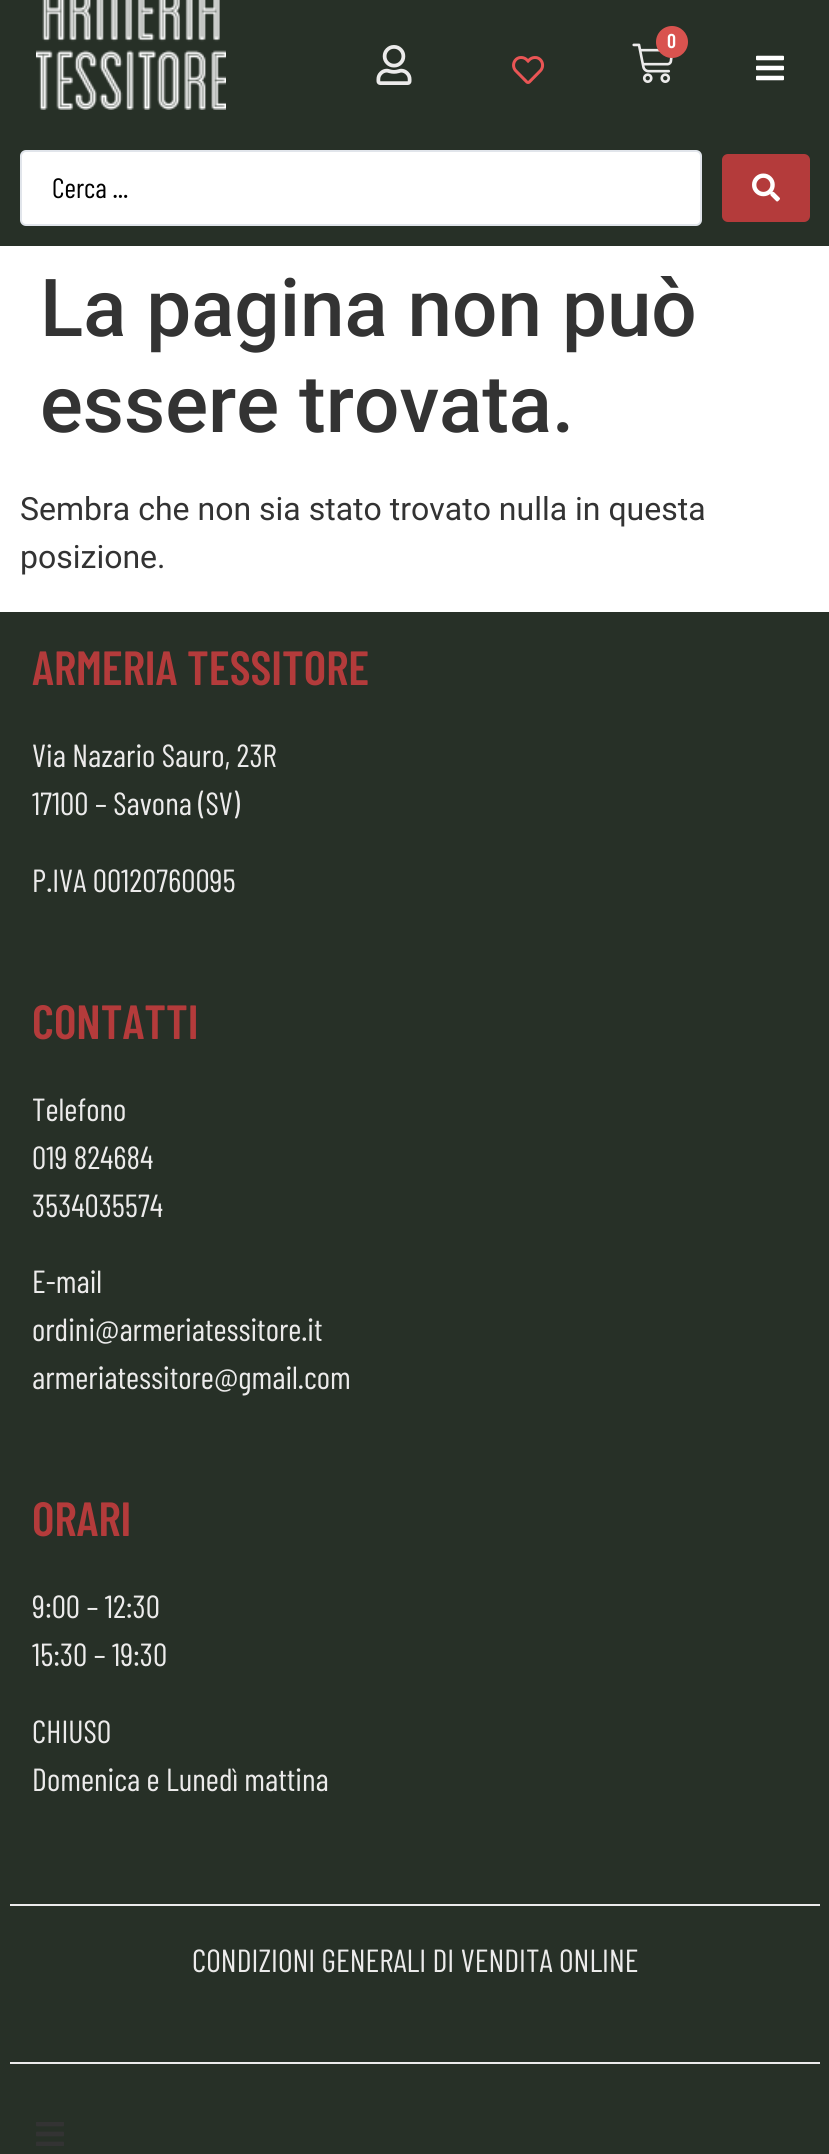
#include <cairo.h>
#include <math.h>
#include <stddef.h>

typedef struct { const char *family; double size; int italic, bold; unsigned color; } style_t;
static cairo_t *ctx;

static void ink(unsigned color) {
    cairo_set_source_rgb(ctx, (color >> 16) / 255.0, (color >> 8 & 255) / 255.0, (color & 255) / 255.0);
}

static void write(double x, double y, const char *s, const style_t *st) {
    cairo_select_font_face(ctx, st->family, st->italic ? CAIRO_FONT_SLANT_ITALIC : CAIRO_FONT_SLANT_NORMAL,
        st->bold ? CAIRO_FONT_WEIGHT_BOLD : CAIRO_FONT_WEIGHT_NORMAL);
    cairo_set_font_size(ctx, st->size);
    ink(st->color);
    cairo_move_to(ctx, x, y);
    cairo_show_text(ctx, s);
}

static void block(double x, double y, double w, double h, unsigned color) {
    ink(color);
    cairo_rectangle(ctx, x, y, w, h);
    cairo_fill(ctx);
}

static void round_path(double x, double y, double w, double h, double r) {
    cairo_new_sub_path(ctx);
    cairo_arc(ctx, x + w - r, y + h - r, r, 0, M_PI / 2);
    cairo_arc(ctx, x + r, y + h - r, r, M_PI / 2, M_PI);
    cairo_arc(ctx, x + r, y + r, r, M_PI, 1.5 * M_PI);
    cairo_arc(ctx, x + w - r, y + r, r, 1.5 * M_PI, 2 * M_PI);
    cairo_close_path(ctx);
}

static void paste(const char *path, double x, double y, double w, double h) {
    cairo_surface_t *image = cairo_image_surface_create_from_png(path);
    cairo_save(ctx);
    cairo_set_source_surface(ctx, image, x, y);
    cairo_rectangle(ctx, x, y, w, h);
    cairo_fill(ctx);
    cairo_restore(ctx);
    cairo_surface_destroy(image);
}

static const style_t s1 = {"Barlow Condensed SemiBold", 20, 0, 0, 0xffffff};
static const style_t s2 = {"Barlow Condensed", 28, 0, 0, 0x000000};
static const style_t s3 = {"Roboto Medium", 80, 0, 0, 0x333333};
static const style_t s4 = {"Roboto", 32, 0, 0, 0x333333};
static const style_t s5 = {"Barlow Condensed SemiBold", 48, 0, 0, 0xb43b3b};
static const style_t s6 = {"Barlow Condensed", 32, 0, 0, 0xecebeb};

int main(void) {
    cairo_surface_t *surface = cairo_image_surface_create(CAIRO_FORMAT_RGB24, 829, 2154);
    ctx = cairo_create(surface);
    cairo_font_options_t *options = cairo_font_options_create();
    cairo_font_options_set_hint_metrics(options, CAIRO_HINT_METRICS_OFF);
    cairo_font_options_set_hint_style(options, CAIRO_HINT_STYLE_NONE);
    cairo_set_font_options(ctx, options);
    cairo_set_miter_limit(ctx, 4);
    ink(0xffffff);
    cairo_paint(ctx);
    block(0, 0, 829, 246, 0x273027);
    paste("pic1.png", 36, 0, 190, 110);
    paste("pic2.png", 632, 43, 41, 40);
    ink(0xd9534f);
    cairo_arc(ctx, 672, 42, 16, 0, 2 * M_PI);
    cairo_fill(ctx);
    write(667, 48, "0", &s1);
    paste("pic3.png", 376, 45, 36, 40);
    paste("pic4.png", 512, 56, 33, 28);
    paste("pic5.png", 756, 55, 28, 26);
    round_path(21, 151, 680, 74, 5);
    cairo_fill_preserve(ctx);
    ink(0xe1e5eb);
    cairo_stroke(ctx);
    write(52, 198, "Cerca ...", &s2);
    ink(0xb43b3b);
    round_path(722, 154, 88, 68, 6);
    cairo_fill(ctx);
    paste("pic6.png", 752, 173, 28, 29);
    write(40, 336, "La pagina non può", &s3);
    write(40, 432, "essere trovata.", &s3);
    write(20, 520, "Sembra che non sia stato trovato nulla in questa", &s4);
    write(20, 568, "posizione.", &s4);
    block(0, 612, 829, 1542, 0x273027);
    write(32, 685, "ARMERIA TESSITORE", &s5);
    write(32, 767, "Via Nazario Sauro, 23R", &s6);
    write(32, 815, "17100 – Savona (SV)", &s6);
    write(32, 892, "P.IVA 00120760095", &s6);
    write(32, 1039, "CONTATTI", &s5);
    write(32, 1121, "Telefono", &s6);
    write(32, 1169, "019 824684", &s6);
    write(32, 1217, "3534035574", &s6);
    write(32, 1293, "E-mail", &s6);
    write(32, 1341, "ordini@armeriatessitore.it", &s6);
    write(32, 1389, "armeriatessitore@gmail.com", &s6);
    write(32, 1536, "ORARI", &s5);
    write(32, 1618, "9:00 – 12:30", &s6);
    write(32, 1666, "15:30 – 19:30", &s6);
    write(32, 1743, "CHIUSO", &s6);
    write(32, 1791, "Domenica e Lunedì mattina", &s6);
    block(10, 1904, 810, 2, 0xecebeb);
    write(192, 1972, "CONDIZIONI GENERALI DI VENDITA ONLINE", &s6);
    block(10, 2062, 810, 2, 0xecebeb);
    paste("pic7.png", 36, 2122, 28, 24);
    cairo_surface_write_to_png(surface, "screenshot.png");
    cairo_font_options_destroy(options);
    cairo_destroy(ctx);
    cairo_surface_destroy(surface);
    return 0;
}
